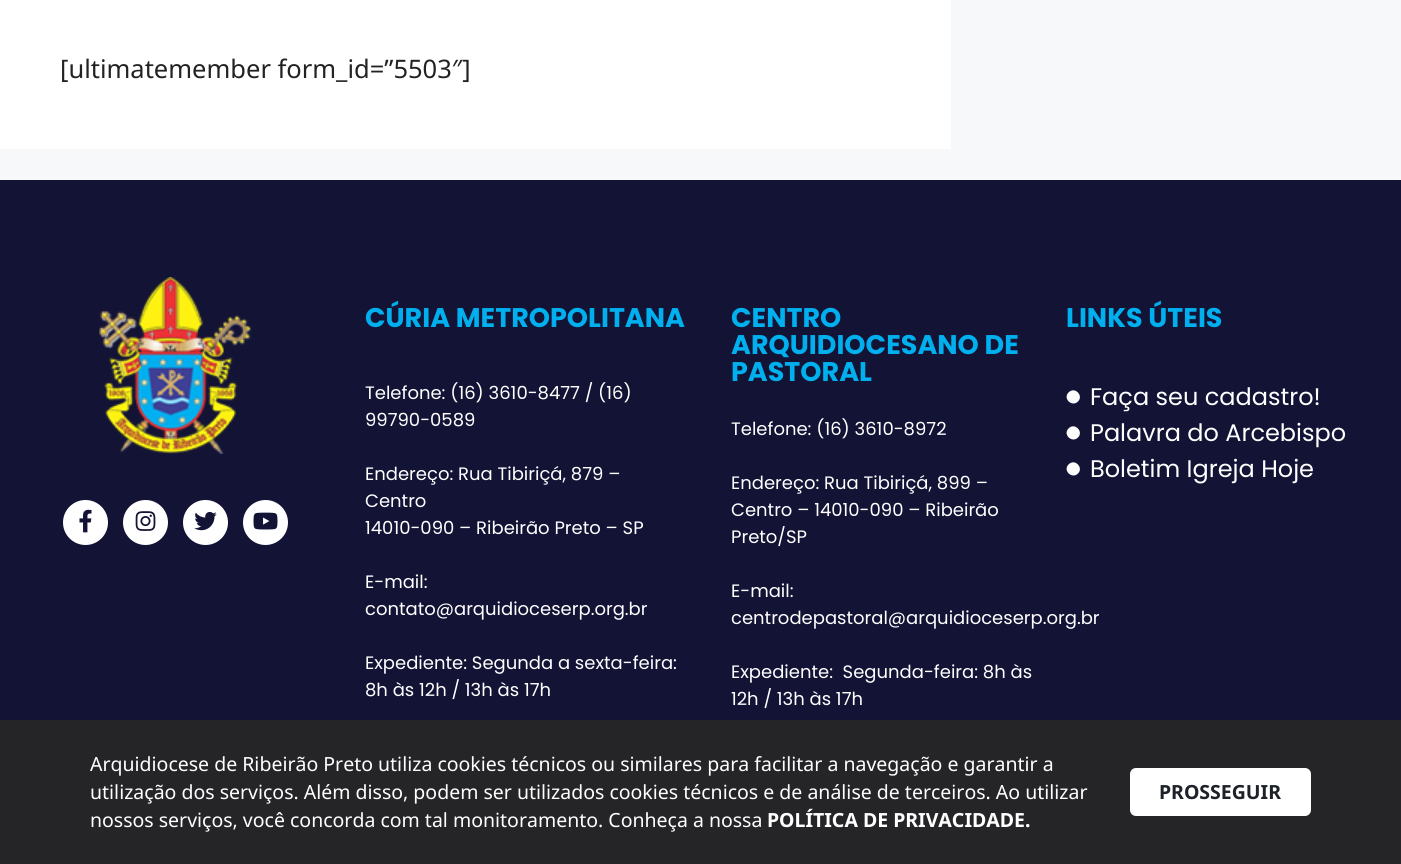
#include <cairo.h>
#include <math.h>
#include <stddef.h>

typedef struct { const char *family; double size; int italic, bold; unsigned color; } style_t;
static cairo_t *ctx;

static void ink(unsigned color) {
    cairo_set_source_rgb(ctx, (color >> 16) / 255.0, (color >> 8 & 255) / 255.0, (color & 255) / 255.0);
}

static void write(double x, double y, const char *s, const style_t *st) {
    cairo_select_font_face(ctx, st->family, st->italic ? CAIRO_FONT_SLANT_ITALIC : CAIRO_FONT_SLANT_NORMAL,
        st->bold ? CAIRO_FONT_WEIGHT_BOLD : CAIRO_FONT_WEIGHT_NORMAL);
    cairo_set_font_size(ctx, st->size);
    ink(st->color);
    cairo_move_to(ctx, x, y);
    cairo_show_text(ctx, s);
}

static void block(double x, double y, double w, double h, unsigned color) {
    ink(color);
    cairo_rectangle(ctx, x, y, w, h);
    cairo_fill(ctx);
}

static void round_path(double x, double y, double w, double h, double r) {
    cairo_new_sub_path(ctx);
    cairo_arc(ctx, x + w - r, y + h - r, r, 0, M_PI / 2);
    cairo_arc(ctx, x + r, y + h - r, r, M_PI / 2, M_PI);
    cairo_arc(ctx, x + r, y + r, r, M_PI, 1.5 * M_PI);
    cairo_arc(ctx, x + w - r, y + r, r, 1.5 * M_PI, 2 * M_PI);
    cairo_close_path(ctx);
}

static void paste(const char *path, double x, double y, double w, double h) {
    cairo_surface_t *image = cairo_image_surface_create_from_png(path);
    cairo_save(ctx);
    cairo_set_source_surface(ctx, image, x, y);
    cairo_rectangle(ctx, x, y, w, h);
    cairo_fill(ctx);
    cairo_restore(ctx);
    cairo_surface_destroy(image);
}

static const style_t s1 = {"Noto Sans", 25.5, 0, 0, 0x222222};
static const style_t s2 = {"Poppins", 27, 0, 1, 0x00afee};
static const style_t s3 = {"Poppins", 18, 0, 0, 0xffffff};
static const style_t s4 = {"Poppins", 24, 0, 0, 0xffffff};
static const style_t s5 = {"Noto Sans", 19.5, 0, 0, 0xffffff};
static const style_t s6 = {"Noto Sans", 19.5, 0, 1, 0xffffff};
static const style_t s7 = {"Noto Sans", 19.5, 0, 1, 0x1d2129};

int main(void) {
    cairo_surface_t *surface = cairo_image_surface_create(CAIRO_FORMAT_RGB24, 1401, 864);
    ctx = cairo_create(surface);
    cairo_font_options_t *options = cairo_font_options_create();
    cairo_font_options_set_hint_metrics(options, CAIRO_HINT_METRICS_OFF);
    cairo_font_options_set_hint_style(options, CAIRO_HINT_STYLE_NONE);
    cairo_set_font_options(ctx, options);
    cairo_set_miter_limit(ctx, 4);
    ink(0xf7f8f9);
    cairo_paint(ctx);
    block(0, 0, 951, 149, 0xffffff);
    write(60, 78, "[ultimatemember form_id=”5503″]", &s1);
    block(0, 180, 1401, 540, 0x131336);
    paste("pic1.png", 99, 277, 152, 177);
    ink(0xffffff);
    cairo_arc(ctx, 85.5, 522.5, 22.5, 0, 2 * M_PI);
    cairo_fill(ctx);
    paste("pic2.png", 79, 509, 13, 24);
    cairo_arc(ctx, 145.5, 522.5, 22.5, 0, 2 * M_PI);
    cairo_fill(ctx);
    paste("pic3.png", 135, 511, 21, 20);
    cairo_arc(ctx, 205.5, 522.5, 22.5, 0, 2 * M_PI);
    cairo_fill(ctx);
    paste("pic4.png", 194, 511, 23, 20);
    cairo_arc(ctx, 265.5, 522.5, 22.5, 0, 2 * M_PI);
    cairo_fill(ctx);
    paste("pic5.png", 253, 512, 25, 18);
    write(365, 327, "CÚRIA METROPOLITANA", &s2);
    write(365, 399, "Telefone: (16) 3610-8477 / (16)", &s3);
    write(365, 426, "99790-0589", &s3);
    write(365, 480, "Endereço: Rua Tibiriçá, 879 –", &s3);
    write(365, 507, "Centro", &s3);
    write(365, 534, "14010-090 – Ribeirão Preto – SP", &s3);
    write(365, 588, "E-mail:", &s3);
    write(365, 615, "contato@arquidioceserp.org.br", &s3);
    write(365, 669, "Expediente: Segunda a sexta-feira:", &s3);
    write(365, 696, "8h às 12h / 13h às 17h", &s3);
    write(731, 327, "CENTRO", &s2);
    write(731, 354, "ARQUIDIOCESANO DE", &s2);
    write(731, 381, "PASTORAL", &s2);
    write(731, 435, "Telefone: (16) 3610-8972", &s3);
    write(731, 489, "Endereço: Rua Tibiriçá, 899 –", &s3);
    write(731, 516, "Centro – 14010-090 – Ribeirão", &s3);
    write(731, 543, "Preto/SP", &s3);
    write(731, 597, "E-mail:", &s3);
    write(731, 624, "centrodepastoral@arquidioceserp.org.br", &s3);
    write(731, 678, "Expediente:  Segunda-feira: 8h às", &s3);
    write(731, 705, "12h / 13h às 17h", &s3);
    write(1066, 327, "LINKS ÚTEIS", &s2);
    ink(0xffffff);
    cairo_new_path(ctx);
    cairo_move_to(ctx, 1068.5, 392.5);
    cairo_curve_to(ctx, 1074.5, 386, 1084, 395.5, 1078, 401.5);
    cairo_curve_to(ctx, 1072, 407.5, 1062.5, 398.5, 1068.5, 392.5);
    cairo_close_path(ctx);
    cairo_fill(ctx);
    write(1090, 405, "Faça seu cadastro!", &s4);
    cairo_new_path(ctx);
    cairo_move_to(ctx, 1068.5, 428.5);
    cairo_curve_to(ctx, 1074.5, 422, 1084, 431.5, 1078, 437.5);
    cairo_curve_to(ctx, 1072, 443.5, 1062.5, 434.5, 1068.5, 428.5);
    cairo_close_path(ctx);
    cairo_fill(ctx);
    write(1090, 441, "Palavra do Arcebispo", &s4);
    cairo_new_path(ctx);
    cairo_move_to(ctx, 1068.5, 464.5);
    cairo_curve_to(ctx, 1074.5, 458, 1084, 467.5, 1078, 473.5);
    cairo_curve_to(ctx, 1072, 479.5, 1062.5, 470.5, 1068.5, 464.5);
    cairo_close_path(ctx);
    cairo_fill(ctx);
    write(1090, 477, "Boletim Igreja Hoje", &s4);
    block(0, 720, 1401, 144, 0x252528);
    write(90, 771, "Arquidiocese de Ribeirão Preto utiliza cookies técnicos ou similares para facilitar a navegação e garantir a", &s5);
    write(90, 799, "utilização dos serviços. Além disso, podem ser utilizados cookies técnicos e de análise de terceiros. Ao utilizar", &s5);
    write(90, 827, "nossos serviços, você concorda com tal monitoramento. Conheça a nossa", &s5);
    write(767, 827, "POLÍTICA DE PRIVACIDADE.", &s6);
    round_path(1130, 768, 181, 48, 6);
    cairo_fill(ctx);
    write(1159, 799, "PROSSEGUIR", &s7);
    cairo_surface_write_to_png(surface, "screenshot.png");
    cairo_font_options_destroy(options);
    cairo_destroy(ctx);
    cairo_surface_destroy(surface);
    return 0;
}
